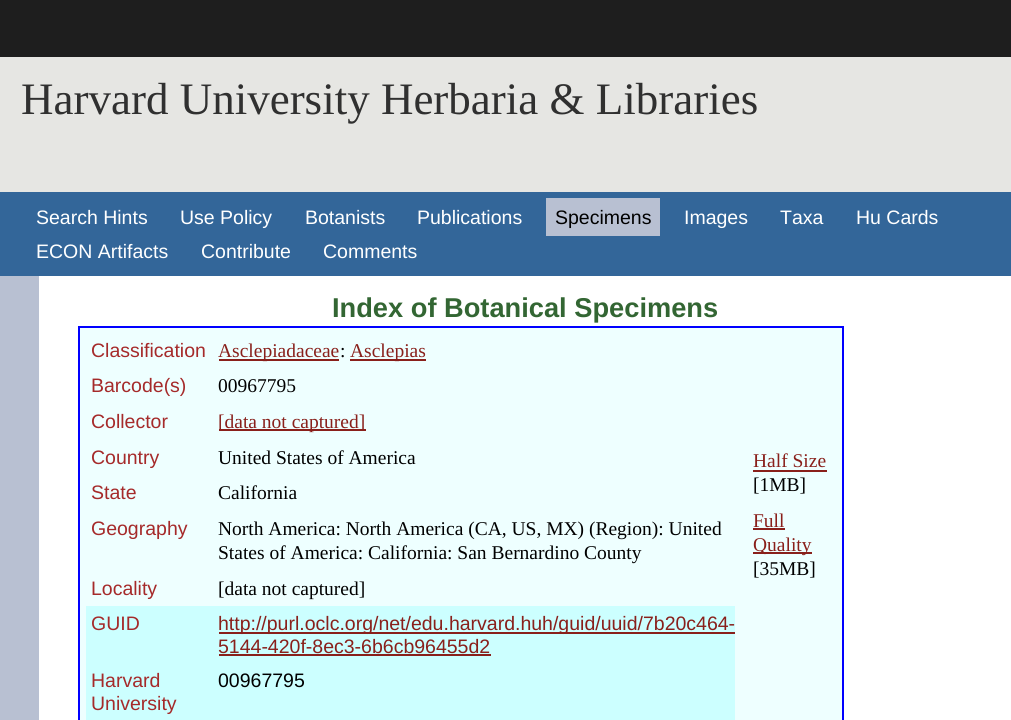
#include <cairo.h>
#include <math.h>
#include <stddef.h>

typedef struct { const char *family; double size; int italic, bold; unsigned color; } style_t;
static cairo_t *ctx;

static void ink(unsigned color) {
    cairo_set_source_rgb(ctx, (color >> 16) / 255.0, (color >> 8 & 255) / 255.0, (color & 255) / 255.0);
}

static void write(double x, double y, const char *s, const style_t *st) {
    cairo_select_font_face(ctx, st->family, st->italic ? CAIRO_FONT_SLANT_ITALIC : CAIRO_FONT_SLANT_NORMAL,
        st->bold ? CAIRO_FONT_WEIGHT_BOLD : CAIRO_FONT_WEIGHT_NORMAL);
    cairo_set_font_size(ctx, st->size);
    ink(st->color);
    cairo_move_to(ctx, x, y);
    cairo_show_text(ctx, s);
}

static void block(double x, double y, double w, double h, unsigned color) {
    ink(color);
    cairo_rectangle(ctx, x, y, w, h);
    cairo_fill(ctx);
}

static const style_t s1 = {"Liberation Serif", 45, 0, 0, 0x303030};
static const style_t s2 = {"Liberation Sans", 19.5, 0, 0, 0xffffff};
static const style_t s3 = {"Liberation Sans", 19.5, 0, 0, 0x000000};
static const style_t s4 = {"Liberation Sans", 27.25, 0, 1, 0x336633};
static const style_t s5 = {"Liberation Sans", 19.5, 0, 0, 0xa52a2a};
static const style_t s6 = {"Liberation Serif", 19.5, 0, 0, 0x89201b};
static const style_t s7 = {"Liberation Serif", 19.5, 0, 0, 0x000000};
static const style_t s8 = {"Liberation Sans", 19.5, 0, 0, 0x89201b};

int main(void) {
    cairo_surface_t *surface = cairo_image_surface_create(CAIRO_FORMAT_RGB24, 1011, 720);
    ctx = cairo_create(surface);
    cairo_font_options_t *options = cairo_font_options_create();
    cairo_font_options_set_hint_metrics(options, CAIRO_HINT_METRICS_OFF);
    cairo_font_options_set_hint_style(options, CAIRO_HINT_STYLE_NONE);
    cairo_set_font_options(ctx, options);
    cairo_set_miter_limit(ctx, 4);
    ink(0x1e1e1e);
    cairo_paint(ctx);
    block(0, 57, 1011, 135, 0xe6e6e3);
    write(21, 114, "Harvard University Herbaria & Libraries", &s1);
    block(0, 192, 1011, 84, 0x336699);
    write(36, 224, "Search Hints", &s2);
    write(180, 224, "Use Policy", &s2);
    write(305, 224, "Botanists", &s2);
    write(417, 224, "Publications", &s2);
    block(546, 198, 114, 38, 0xb8c0d2);
    write(555, 224, "Specimens", &s3);
    write(684, 224, "Images", &s2);
    write(780, 224, "Taxa", &s2);
    write(856, 224, "Hu Cards", &s2);
    write(36, 258, "ECON Artifacts", &s2);
    write(201, 258, "Contribute", &s2);
    write(323, 258, "Comments", &s2);
    block(0, 276, 39, 444, 0xb8c0d2);
    block(39, 276, 972, 444, 0xffffff);
    write(332, 317, "Index of Botanical Specimens", &s4);
    block(80, 328, 762, 392, 0xeeffff);
    block(78, 326, 765, 2, 0x0000ff);
    block(842, 326, 2, 394, 0x0000ff);
    block(78, 326, 2, 394, 0x0000ff);
    write(91, 357, "Classification", &s5);
    block(219, 359, 120, 2, 0x89201b);
    write(218, 357, "Asclepiadaceae", &s6);
    write(340, 357, ":", &s7);
    block(350, 359, 76, 2, 0x89201b);
    write(350, 357, "Asclepias", &s6);
    write(91, 392, "Barcode(s)", &s5);
    write(218, 392, "00967795", &s7);
    write(91, 428, "Collector", &s5);
    block(219, 429, 147, 2, 0x89201b);
    write(218, 428, "[data not captured]", &s6);
    write(91, 464, "Country", &s5);
    write(218, 464, "United States of America", &s7);
    write(91, 499, "State", &s5);
    write(218, 499, "California", &s7);
    write(91, 535, "Geography", &s5);
    write(218, 535, "North America: North America (CA, US, MX) (Region): United", &s7);
    write(218, 559, "States of America: California: San Bernardino County", &s7);
    write(91, 595, "Locality", &s5);
    write(218, 595, "[data not captured]", &s7);
    block(86, 606, 649, 114, 0xccffff);
    write(91, 630, "GUID", &s5);
    block(219, 632, 516, 2, 0x89201b);
    write(218, 630, "http://purl.oclc.org/net/edu.harvard.huh/guid/uuid/7b20c464-", &s8);
    write(218, 653, "5144-420f-8ec3-6b6cb96455d2", &s8);
    block(219, 654, 272, 2, 0x89201b);
    write(91, 687, "Harvard", &s5);
    write(91, 710, "University", &s5);
    write(218, 687, "00967795", &s3);
    write(753, 467, "Half Size", &s6);
    block(753, 470, 74, 2, 0x89201b);
    write(753, 491, "[1MB]", &s7);
    write(753, 527, "Full", &s6);
    block(753, 528, 32, 2, 0x89201b);
    block(753, 552, 59, 2, 0x89201b);
    write(753, 551, "Quality", &s6);
    write(753, 575, "[35MB]", &s7);
    cairo_surface_write_to_png(surface, "screenshot.png");
    cairo_font_options_destroy(options);
    cairo_destroy(ctx);
    cairo_surface_destroy(surface);
    return 0;
}
